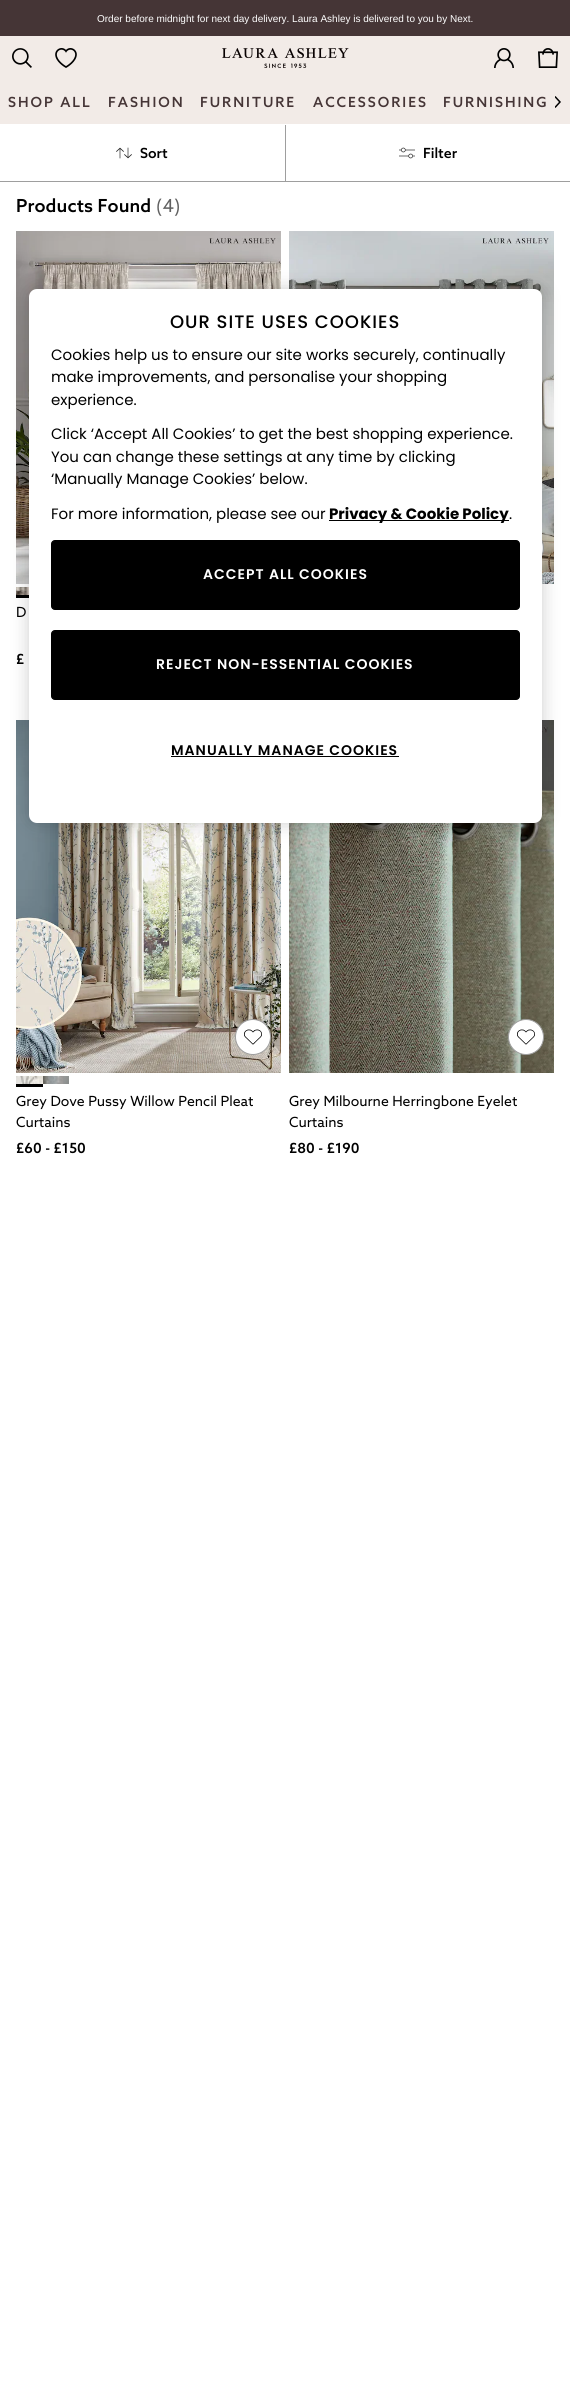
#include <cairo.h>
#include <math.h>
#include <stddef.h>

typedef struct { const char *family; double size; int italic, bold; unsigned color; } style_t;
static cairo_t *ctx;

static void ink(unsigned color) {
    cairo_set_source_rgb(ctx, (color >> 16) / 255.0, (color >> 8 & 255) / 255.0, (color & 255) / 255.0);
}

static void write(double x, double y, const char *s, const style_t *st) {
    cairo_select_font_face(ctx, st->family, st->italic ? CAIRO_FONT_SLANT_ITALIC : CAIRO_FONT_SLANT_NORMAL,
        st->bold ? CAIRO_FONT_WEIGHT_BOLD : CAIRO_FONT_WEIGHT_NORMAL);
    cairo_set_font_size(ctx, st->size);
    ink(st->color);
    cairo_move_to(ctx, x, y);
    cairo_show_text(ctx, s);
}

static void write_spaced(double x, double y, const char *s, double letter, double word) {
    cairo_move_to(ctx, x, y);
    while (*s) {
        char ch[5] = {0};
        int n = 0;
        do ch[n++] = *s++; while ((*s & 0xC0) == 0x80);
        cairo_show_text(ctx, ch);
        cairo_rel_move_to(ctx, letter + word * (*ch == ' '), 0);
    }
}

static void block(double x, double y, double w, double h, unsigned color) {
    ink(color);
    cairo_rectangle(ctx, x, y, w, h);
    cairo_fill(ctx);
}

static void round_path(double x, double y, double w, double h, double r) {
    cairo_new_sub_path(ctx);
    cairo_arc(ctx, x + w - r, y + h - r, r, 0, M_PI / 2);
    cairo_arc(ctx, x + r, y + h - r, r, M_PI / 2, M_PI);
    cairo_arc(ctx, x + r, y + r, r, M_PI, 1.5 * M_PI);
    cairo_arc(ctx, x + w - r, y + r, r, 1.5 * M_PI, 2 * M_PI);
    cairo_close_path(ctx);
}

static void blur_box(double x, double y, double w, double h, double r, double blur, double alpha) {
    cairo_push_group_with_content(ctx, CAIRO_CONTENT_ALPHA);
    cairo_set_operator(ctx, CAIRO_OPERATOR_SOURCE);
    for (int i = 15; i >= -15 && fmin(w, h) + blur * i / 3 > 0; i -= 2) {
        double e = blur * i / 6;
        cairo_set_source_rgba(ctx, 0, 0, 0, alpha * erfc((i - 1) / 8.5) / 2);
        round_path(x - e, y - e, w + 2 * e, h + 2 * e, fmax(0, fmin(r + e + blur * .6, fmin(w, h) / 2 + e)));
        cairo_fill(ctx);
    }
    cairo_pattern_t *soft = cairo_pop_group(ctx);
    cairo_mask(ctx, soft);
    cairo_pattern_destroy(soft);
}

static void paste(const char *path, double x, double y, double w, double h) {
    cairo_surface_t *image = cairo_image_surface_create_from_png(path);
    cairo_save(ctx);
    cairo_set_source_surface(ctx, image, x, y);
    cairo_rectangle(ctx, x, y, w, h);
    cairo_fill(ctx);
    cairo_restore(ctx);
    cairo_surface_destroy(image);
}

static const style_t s1 = {"Liberation Sans", 10, 0, 0, 0xffffff};
static const style_t s2 = {"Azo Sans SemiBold", 14, 0, 0, 0x000000};
static const style_t s3 = {"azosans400", 14, 0, 0, 0x000000};
static const style_t s4 = {"Poppins", 15, 0, 0, 0x000000};
static const style_t s5 = {"Poppins", 15, 0, 1, 0x000000};

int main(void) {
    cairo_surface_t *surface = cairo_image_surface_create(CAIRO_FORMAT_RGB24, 570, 2387);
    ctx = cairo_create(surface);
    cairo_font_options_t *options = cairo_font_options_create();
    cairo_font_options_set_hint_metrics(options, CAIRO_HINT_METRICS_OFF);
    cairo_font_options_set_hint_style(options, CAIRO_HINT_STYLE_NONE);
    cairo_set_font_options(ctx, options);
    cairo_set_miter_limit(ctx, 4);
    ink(0xffffff);
    cairo_paint(ctx);
    block(0, 0, 570, 36, 0x453536);
    write(97, 22, "Order before midnight for next day delivery. Laura Ashley is delivered to you by Next.", &s1);
    block(0, 36, 570, 88, 0xf2ebe7);
    paste("pic1.png", 12, 48, 20, 20);
    paste("pic2.png", 55, 48, 22, 20);
    paste("pic3.png", 222, 48, 127, 20);
    paste("pic4.png", 494, 48, 20, 20);
    paste("pic5.png", 538, 48, 20, 20);
    cairo_select_font_face(ctx, "Azo Sans SemiBold", CAIRO_FONT_SLANT_NORMAL, CAIRO_FONT_WEIGHT_NORMAL);
    cairo_set_font_size(ctx, 14);
    ink(0x453536);
    write_spaced(8, 107, "SHOP ALL", 2, 0);
    write_spaced(108, 107, "FASHION", 2, 0);
    write_spaced(200, 107, "FURNITURE", 2, 0);
    write_spaced(313, 107, "ACCESSORIES", 2, 0);
    write_spaced(443, 107, "FURNISHING", 2, 0);
    block(546, 101, 1, 6, 0xf2ebe7);
    paste("pic6.png", 555, 96, 6, 12);
    block(0, 181, 570, 1, 0x9e9e9e);
    paste("pic7.png", 116, 147, 16, 12);
    write(140, 158, "Sort", &s2);
    block(285, 125, 1, 56, 0x9e9e9e);
    paste("pic8.png", 399, 147, 16, 12);
    write(423, 158, "Filter", &s2);
    cairo_set_font_size(ctx, 18);
    write_spaced(16, 212, "Products Found", 0.1, 0);
    cairo_select_font_face(ctx, "azosans400", CAIRO_FONT_SLANT_NORMAL, CAIRO_FONT_WEIGHT_NORMAL);
    ink(0x616161);
    write_spaced(156, 212, "(4)", 0.1, 0);
    paste("pic9.png", 289, 231, 265, 353);
    ink(0xffffff);
    cairo_arc(ctx, 526, 548, 17.5, 0, 2 * M_PI);
    cairo_fill_preserve(ctx);
    ink(0x9e9e9e);
    cairo_set_line_width(ctx, 1);
    cairo_stroke(ctx);
    paste("pic10.png", 16, 231, 265, 353);
    block(16, 595, 13, 3, 0x000000);
    paste("pic11.png", 16, 587, 13, 8);
    write(16, 617, "D", &s3);
    cairo_select_font_face(ctx, "Azo Sans SemiBold", CAIRO_FONT_SLANT_NORMAL, CAIRO_FONT_WEIGHT_NORMAL);
    write_spaced(16, 664, "£", 0.1, 0);
    paste("pic12.png", 16, 720, 265, 353);
    ink(0xffffff);
    cairo_arc(ctx, 253, 1037, 17.5, 0, 2 * M_PI);
    cairo_fill_preserve(ctx);
    ink(0x9e9e9e);
    cairo_stroke(ctx);
    paste("pic13.png", 244, 1029, 18, 16);
    block(16, 1084, 27, 3, 0x000000);
    paste("pic14.png", 16, 1076, 27, 8);
    paste("pic15.png", 43, 1076, 26, 8);
    write(16, 1106, "Grey Dove Pussy Willow Pencil Pleat", &s3);
    write(16, 1127, "Curtains", &s3);
    cairo_select_font_face(ctx, "Azo Sans SemiBold", CAIRO_FONT_SLANT_NORMAL, CAIRO_FONT_WEIGHT_NORMAL);
    write_spaced(16, 1153, "£60 - £150", 0.1, 0);
    paste("pic16.png", 289, 720, 265, 353);
    ink(0xffffff);
    cairo_arc(ctx, 526, 1037, 17.5, 0, 2 * M_PI);
    cairo_fill_preserve(ctx);
    ink(0x9e9e9e);
    cairo_stroke(ctx);
    paste("pic17.png", 517, 1029, 18, 16);
    write(289, 1106, "Grey Milbourne Herringbone Eyelet", &s3);
    write(289, 1127, "Curtains", &s3);
    cairo_select_font_face(ctx, "Azo Sans SemiBold", CAIRO_FONT_SLANT_NORMAL, CAIRO_FONT_WEIGHT_NORMAL);
    write_spaced(289, 1153, "£80 - £190", 0.1, 0);
    ink(0x000000);
    blur_box(29, 289, 513, 534, 8, 9, 0.2);
    ink(0xffffff);
    round_path(29, 289, 513, 534, 8);
    cairo_fill(ctx);
    cairo_select_font_face(ctx, "Poppins Medium", CAIRO_FONT_SLANT_NORMAL, CAIRO_FONT_WEIGHT_NORMAL);
    cairo_set_font_size(ctx, 18);
    ink(0x000000);
    write_spaced(170, 328, "OUR SITE USES COOKIES", 1, 0);
    write(51, 360, "Cookies help us to ensure our site works securely, continually", &s4);
    write(51, 382, "make improvements, and personalise your shopping", &s4);
    write(51, 405, "experience.", &s4);
    write(51, 439, "Click ‘Accept All Cookies’ to get the best shopping experience.", &s4);
    write(51, 462, "You can change these settings at any time by clicking", &s4);
    write(51, 484, "‘Manually Manage Cookies’ below.", &s4);
    write(51, 519, "For more information, please see our", &s4);
    block(329, 520, 180, 1, 0x000000);
    write(329, 519, "Privacy & Cookie Policy", &s5);
    write(509, 519, ".", &s4);
    round_path(51.5, 540.5, 468, 69, 3.5);
    cairo_fill_preserve(ctx);
    cairo_stroke(ctx);
    cairo_select_font_face(ctx, "Poppins SemiBold", CAIRO_FONT_SLANT_NORMAL, CAIRO_FONT_WEIGHT_NORMAL);
    cairo_set_font_size(ctx, 14);
    ink(0xffffff);
    write_spaced(203, 579, "ACCEPT ALL COOKIES", 1, 0);
    ink(0x000000);
    round_path(51.5, 630.5, 468, 69, 3.5);
    cairo_fill_preserve(ctx);
    cairo_stroke(ctx);
    ink(0xffffff);
    write_spaced(156, 669, "REJECT NON-ESSENTIAL COOKIES", 1, 0);
    ink(0x000000);
    write_spaced(171, 755, "MANUALLY MANAGE COOKIES", 1, 0);
    block(171, 756, 228, 1, 0x000000);
    cairo_surface_write_to_png(surface, "screenshot.png");
    cairo_font_options_destroy(options);
    cairo_destroy(ctx);
    cairo_surface_destroy(surface);
    return 0;
}
